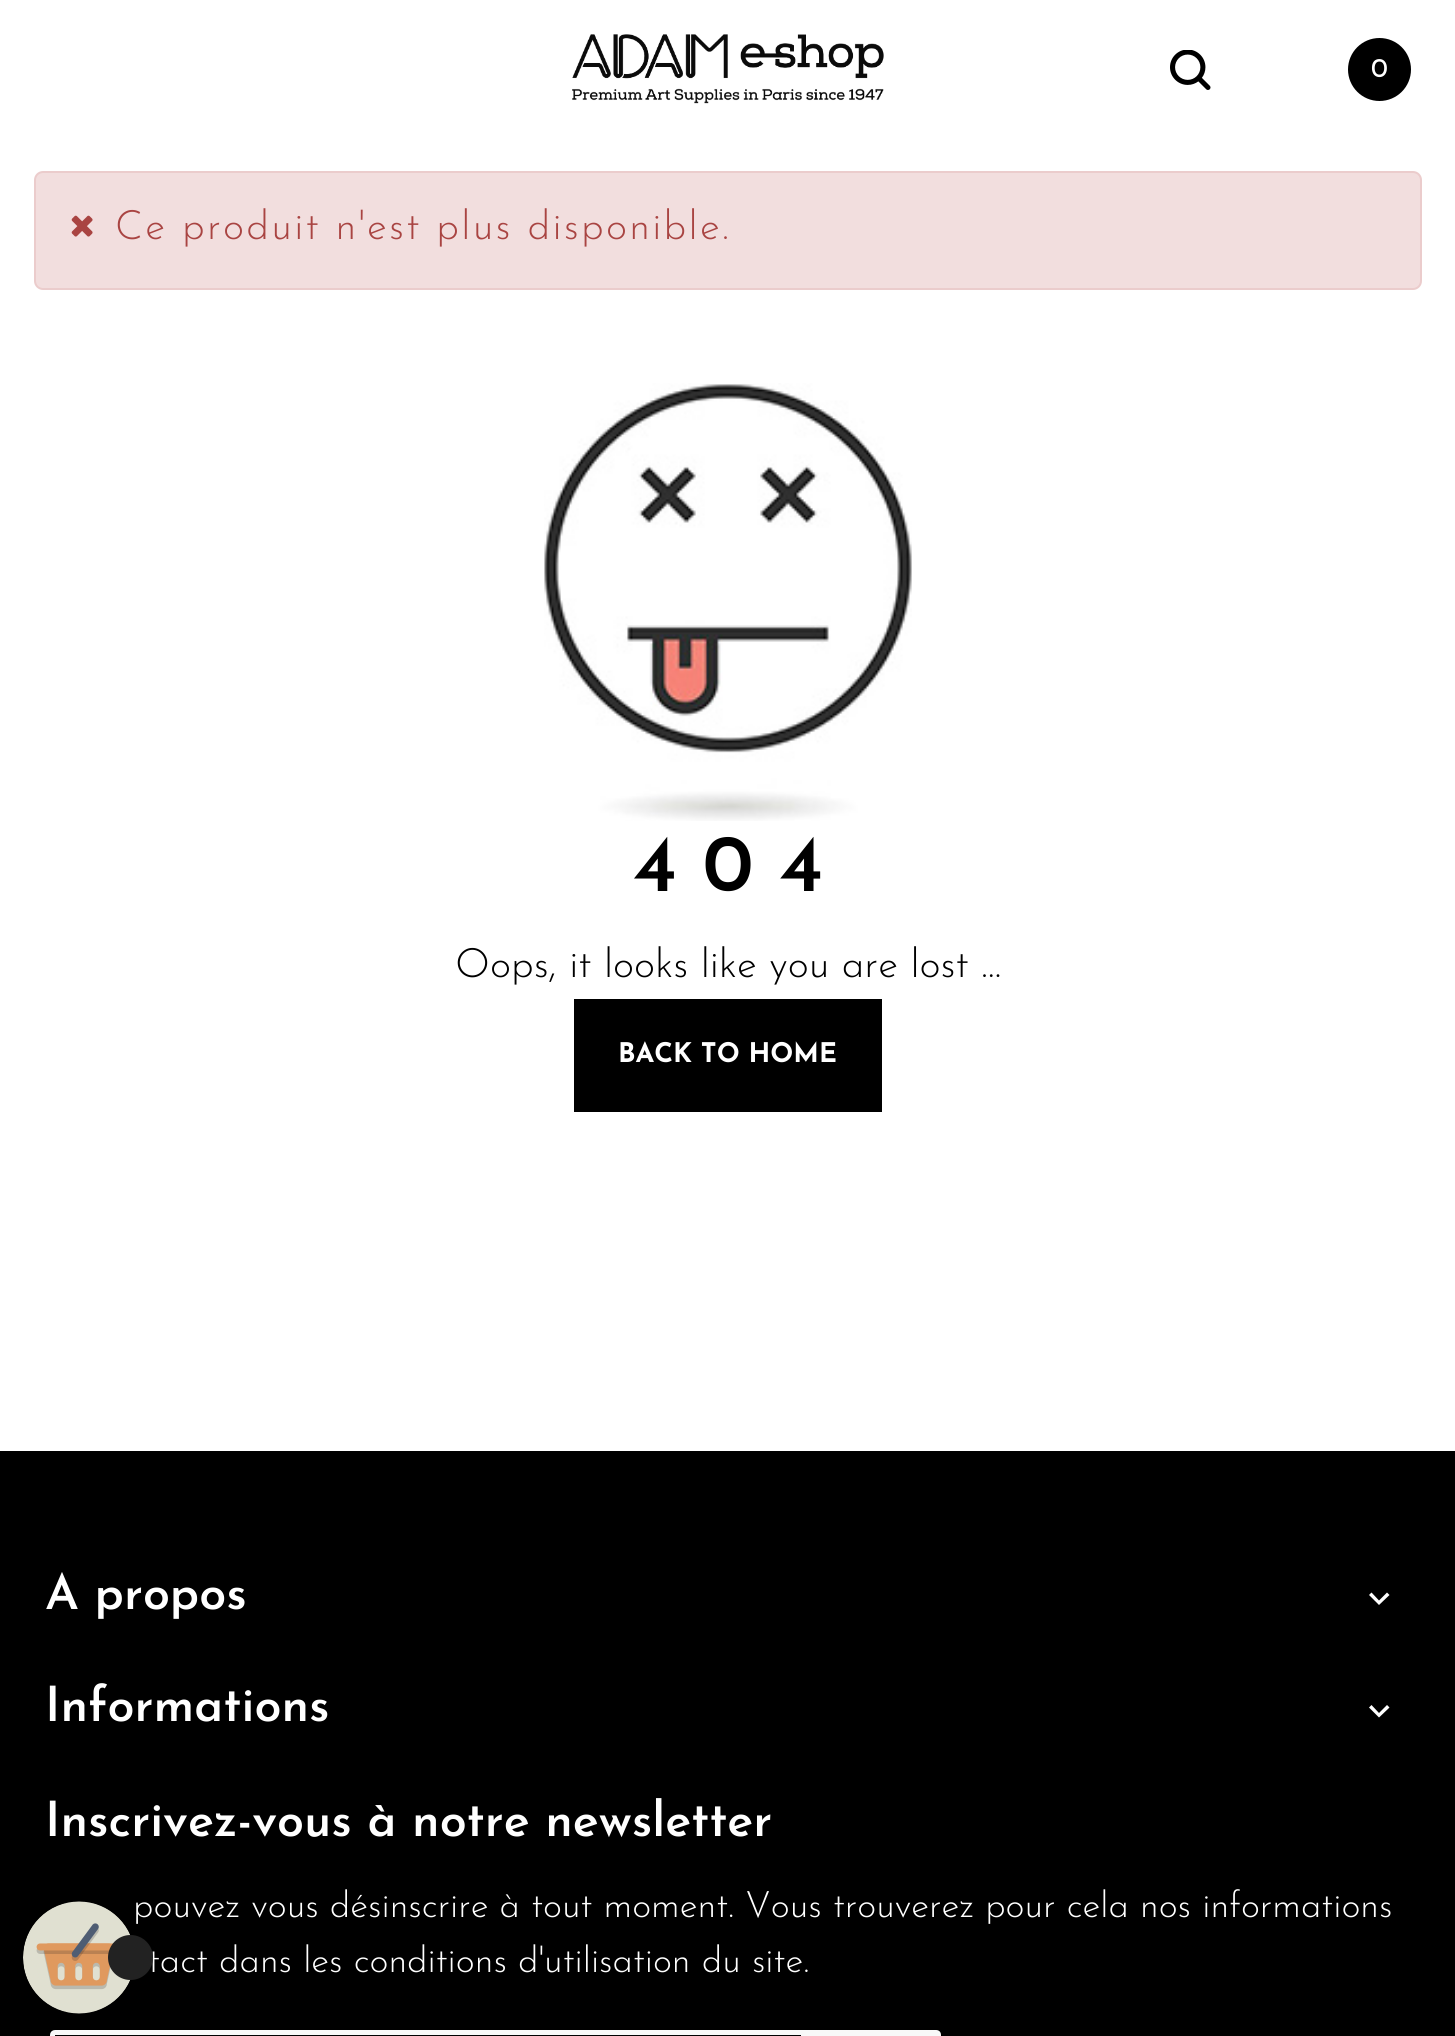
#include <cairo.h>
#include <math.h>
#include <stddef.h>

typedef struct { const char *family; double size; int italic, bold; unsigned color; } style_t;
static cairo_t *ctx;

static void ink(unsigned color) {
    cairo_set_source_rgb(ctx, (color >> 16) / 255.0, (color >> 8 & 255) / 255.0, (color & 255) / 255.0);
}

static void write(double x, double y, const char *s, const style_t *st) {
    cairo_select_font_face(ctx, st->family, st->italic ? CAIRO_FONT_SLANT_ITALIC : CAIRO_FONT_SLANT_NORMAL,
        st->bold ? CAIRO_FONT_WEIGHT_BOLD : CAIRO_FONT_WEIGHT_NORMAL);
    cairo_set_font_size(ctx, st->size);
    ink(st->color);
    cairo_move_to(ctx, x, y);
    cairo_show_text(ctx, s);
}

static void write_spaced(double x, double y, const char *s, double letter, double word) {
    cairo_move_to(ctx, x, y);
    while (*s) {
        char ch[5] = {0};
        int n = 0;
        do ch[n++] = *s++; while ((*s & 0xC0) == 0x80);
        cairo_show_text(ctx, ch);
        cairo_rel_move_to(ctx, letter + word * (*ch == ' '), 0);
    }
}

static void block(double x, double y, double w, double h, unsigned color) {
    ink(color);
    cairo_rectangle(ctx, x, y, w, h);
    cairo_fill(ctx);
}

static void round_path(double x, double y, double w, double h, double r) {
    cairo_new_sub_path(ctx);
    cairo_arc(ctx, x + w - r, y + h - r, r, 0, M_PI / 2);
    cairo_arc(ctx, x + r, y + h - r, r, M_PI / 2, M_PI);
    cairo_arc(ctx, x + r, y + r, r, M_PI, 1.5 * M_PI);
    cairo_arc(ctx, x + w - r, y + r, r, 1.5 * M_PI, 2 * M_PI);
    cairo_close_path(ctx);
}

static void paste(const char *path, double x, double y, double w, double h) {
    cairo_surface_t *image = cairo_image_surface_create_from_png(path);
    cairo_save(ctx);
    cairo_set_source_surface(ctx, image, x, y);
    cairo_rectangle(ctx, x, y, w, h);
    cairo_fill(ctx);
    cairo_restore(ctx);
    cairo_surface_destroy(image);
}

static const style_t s1 = {"Josefin Sans", 27, 0, 0, 0xffffff};
static const style_t s2 = {"Josefin Sans SemiBold", 81, 0, 0, 0x000000};
static const style_t s3 = {"Josefin Sans Light", 40.5, 0, 0, 0x000000};
static const style_t s4 = {"Josefin Sans", 27, 0, 1, 0xffffff};
static const style_t s5 = {"Josefin Sans SemiBold", 48.6, 0, 0, 0xffffff};
static const style_t s6 = {"Josefin Sans Light", 36.45, 0, 0, 0xffffff};

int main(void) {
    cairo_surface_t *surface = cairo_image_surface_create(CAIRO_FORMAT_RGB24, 1455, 2036);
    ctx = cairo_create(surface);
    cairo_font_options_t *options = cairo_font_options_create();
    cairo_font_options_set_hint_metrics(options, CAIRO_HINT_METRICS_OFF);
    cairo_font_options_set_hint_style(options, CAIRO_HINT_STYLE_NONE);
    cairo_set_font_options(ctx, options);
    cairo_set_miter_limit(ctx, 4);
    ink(0xffffff);
    cairo_paint(ctx);
    paste("pic1.png", 572, 34, 312, 70);
    paste("pic2.png", 1170, 50, 41, 40);
    ink(0x000000);
    cairo_arc(ctx, 1379.5, 69.5, 31.5, 0, 2 * M_PI);
    cairo_fill(ctx);
    write(1371, 77, "0", &s1);
    ink(0xf2dede);
    round_path(35, 172, 1386, 117, 8);
    cairo_fill_preserve(ctx);
    ink(0xebcccc);
    cairo_stroke(ctx);
    paste("pic3.png", 71, 215, 22, 22);
    cairo_select_font_face(ctx, "Josefin Sans Light", CAIRO_FONT_SLANT_NORMAL, CAIRO_FONT_WEIGHT_NORMAL);
    cairo_set_font_size(ctx, 40.5);
    ink(0xa94442);
    write_spaced(115, 239, "Ce produit n'est plus disponible.", 2.25, 0);
    paste("pic4.png", 544, 383, 368, 438);
    write(633, 891, "4 0 4", &s2);
    write(455, 977, "Oops, it looks like you are lost ...", &s3);
    block(574, 999, 308, 113, 0x000000);
    write(618, 1062, "BACK TO HOME", &s4);
    block(0, 1451, 1455, 585, 0x000000);
    write(45, 1609, "A propos", &s5);
    cairo_new_path(ctx);
    cairo_move_to(ctx, 1371.5, 1592.5);
    cairo_line_to(ctx, 1379, 1600.5);
    cairo_line_to(ctx, 1387, 1592.5);
    cairo_line_to(ctx, 1389.5, 1595);
    cairo_line_to(ctx, 1379, 1605);
    cairo_line_to(ctx, 1369, 1595);
    cairo_close_path(ctx);
    cairo_fill(ctx);
    write(45, 1721, "Informations", &s5);
    cairo_new_path(ctx);
    cairo_move_to(ctx, 1371.5, 1705);
    cairo_line_to(ctx, 1379, 1713);
    cairo_line_to(ctx, 1387, 1705);
    cairo_line_to(ctx, 1389.5, 1707.5);
    cairo_line_to(ctx, 1379, 1717.5);
    cairo_line_to(ctx, 1369, 1707.5);
    cairo_close_path(ctx);
    cairo_fill(ctx);
    write(45, 1836, "Inscrivez-vous à notre newsletter", &s5);
    write(133, 1917, "pouvez vous désinscrire à tout moment. Vous trouverez pour cela nos informations", &s6);
    write(148, 1972, "tact dans les conditions d'utilisation du site.", &s6);
    cairo_new_path(ctx);
    cairo_move_to(ctx, 55, 2032.5);
    cairo_line_to(ctx, 803.5, 2032.5);
    cairo_line_to(ctx, 803.5, 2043.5);
    cairo_line_to(ctx, 55, 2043.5);
    cairo_curve_to(ctx, 53.5, 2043.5, 52.5, 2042.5, 52.5, 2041);
    cairo_line_to(ctx, 52.5, 2035);
    cairo_curve_to(ctx, 52.5, 2033.5, 53.5, 2032.5, 55, 2032.5);
    cairo_close_path(ctx);
    ink(0xf8f8f8);
    cairo_set_line_width(ctx, 5);
    cairo_stroke(ctx);
    cairo_new_path(ctx);
    cairo_move_to(ctx, 806, 2030);
    cairo_line_to(ctx, 936, 2030);
    cairo_curve_to(ctx, 939, 2030, 941, 2032, 941, 2035);
    cairo_line_to(ctx, 941, 2036);
    cairo_curve_to(ctx, 941, 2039, 939, 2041, 936, 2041);
    cairo_line_to(ctx, 806, 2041);
    cairo_close_path(ctx);
    cairo_fill(ctx);
    paste("pic5.png", 23, 1901, 107, 113);
    ink(0x222222);
    cairo_arc(ctx, 130.5, 1957.5, 22.5, 0, 2 * M_PI);
    cairo_fill(ctx);
    cairo_surface_write_to_png(surface, "screenshot.png");
    cairo_font_options_destroy(options);
    cairo_destroy(ctx);
    cairo_surface_destroy(surface);
    return 0;
}
